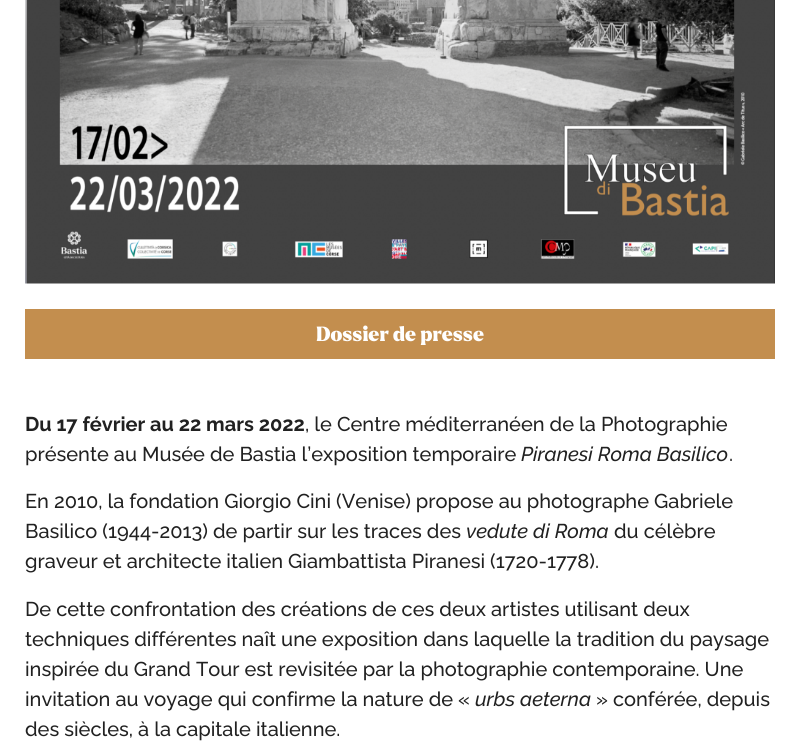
#include <cairo.h>
#include <math.h>
#include <stddef.h>

typedef struct { const char *family; double size; int italic, bold; unsigned color; } style_t;
static cairo_t *ctx;

static void ink(unsigned color) {
    cairo_set_source_rgb(ctx, (color >> 16) / 255.0, (color >> 8 & 255) / 255.0, (color & 255) / 255.0);
}

static void write(double x, double y, const char *s, const style_t *st) {
    cairo_select_font_face(ctx, st->family, st->italic ? CAIRO_FONT_SLANT_ITALIC : CAIRO_FONT_SLANT_NORMAL,
        st->bold ? CAIRO_FONT_WEIGHT_BOLD : CAIRO_FONT_WEIGHT_NORMAL);
    cairo_set_font_size(ctx, st->size);
    ink(st->color);
    cairo_move_to(ctx, x, y);
    cairo_show_text(ctx, s);
}

static void block(double x, double y, double w, double h, unsigned color) {
    ink(color);
    cairo_rectangle(ctx, x, y, w, h);
    cairo_fill(ctx);
}

static void paste(const char *path, double x, double y, double w, double h) {
    cairo_surface_t *image = cairo_image_surface_create_from_png(path);
    cairo_save(ctx);
    cairo_set_source_surface(ctx, image, x, y);
    cairo_rectangle(ctx, x, y, w, h);
    cairo_fill(ctx);
    cairo_restore(ctx);
    cairo_surface_destroy(image);
}

static const style_t s1 = {"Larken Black", 20, 0, 0, 0xffffff};
static const style_t s2 = {"Raleway", 20, 0, 1, 0x212121};
static const style_t s3 = {"Raleway Medium", 20, 0, 0, 0x212121};
static const style_t s4 = {"Raleway Medium", 20, 1, 0, 0x212121};

int main(void) {
    cairo_surface_t *surface = cairo_image_surface_create(CAIRO_FORMAT_RGB24, 800, 749);
    ctx = cairo_create(surface);
    cairo_font_options_t *options = cairo_font_options_create();
    cairo_font_options_set_hint_metrics(options, CAIRO_HINT_METRICS_OFF);
    cairo_font_options_set_hint_style(options, CAIRO_HINT_STYLE_NONE);
    cairo_set_font_options(ctx, options);
    cairo_set_miter_limit(ctx, 4);
    ink(0xffffff);
    cairo_paint(ctx);
    paste("pic1.png", 25, 0, 750, 284);
    block(25, 309, 750, 50, 0xc38e4e);
    write(316, 341, "Dossier de presse", &s1);
    write(25, 431, "Du 17 février au 22 mars 2022", &s2);
    write(305, 431, ", le Centre méditerranéen de la Photographie", &s3);
    write(25, 461, "présente au Musée de Bastia l’exposition temporaire", &s3);
    write(521, 461, "Piranesi Roma Basilico", &s4);
    write(729, 461, ".", &s3);
    write(25, 508, "En 2010, la fondation Giorgio Cini (Venise) propose au photographe Gabriele", &s3);
    write(25, 538, "Basilico (1944-2013) de partir sur les traces des", &s3);
    write(466, 538, "vedute di Roma", &s4);
    write(614, 538, "du célèbre", &s3);
    write(25, 568, "graveur et architecte italien Giambattista Piranesi (1720-1778).", &s3);
    write(25, 616, "De cette confrontation des créations de ces deux artistes utilisant deux", &s3);
    write(25, 646, "techniques différentes naît une exposition dans laquelle la tradition du paysage", &s3);
    write(25, 676, "inspirée du Grand Tour est revisitée par la photographie contemporaine. Une", &s3);
    write(25, 706, "invitation au voyage qui confirme la nature de «", &s3);
    write(475, 706, "urbs aeterna", &s4);
    write(596, 706, "» conférée, depuis", &s3);
    write(25, 736, "des siècles, à la capitale italienne.", &s3);
    cairo_surface_write_to_png(surface, "screenshot.png");
    cairo_font_options_destroy(options);
    cairo_destroy(ctx);
    cairo_surface_destroy(surface);
    return 0;
}
